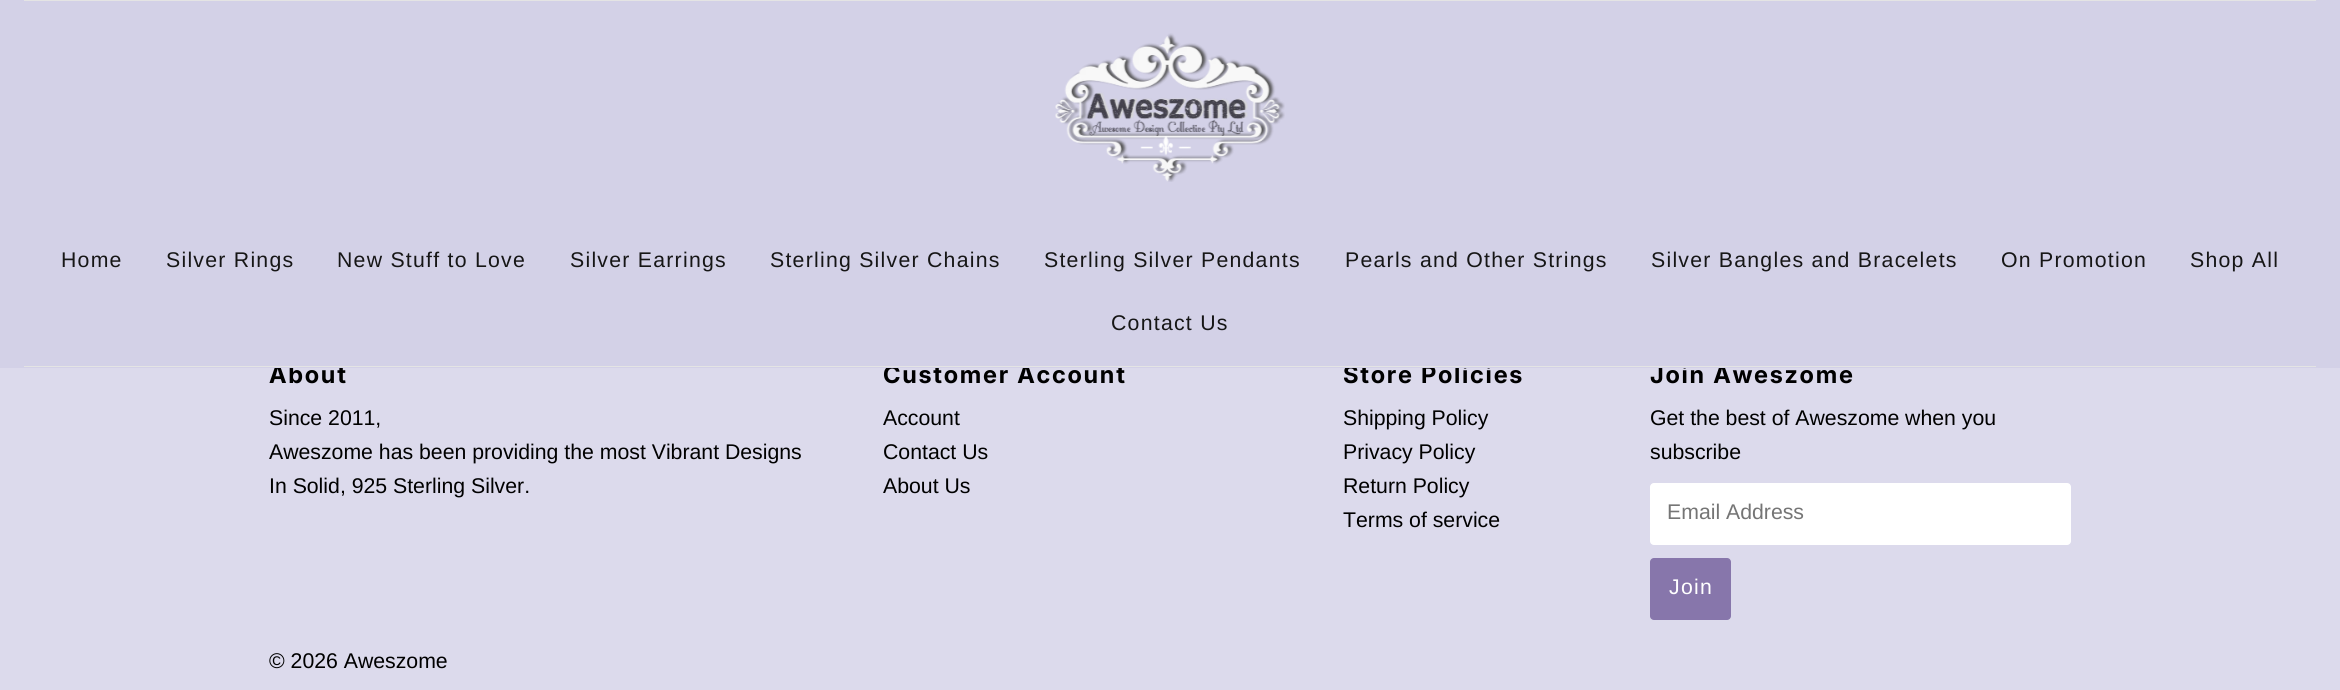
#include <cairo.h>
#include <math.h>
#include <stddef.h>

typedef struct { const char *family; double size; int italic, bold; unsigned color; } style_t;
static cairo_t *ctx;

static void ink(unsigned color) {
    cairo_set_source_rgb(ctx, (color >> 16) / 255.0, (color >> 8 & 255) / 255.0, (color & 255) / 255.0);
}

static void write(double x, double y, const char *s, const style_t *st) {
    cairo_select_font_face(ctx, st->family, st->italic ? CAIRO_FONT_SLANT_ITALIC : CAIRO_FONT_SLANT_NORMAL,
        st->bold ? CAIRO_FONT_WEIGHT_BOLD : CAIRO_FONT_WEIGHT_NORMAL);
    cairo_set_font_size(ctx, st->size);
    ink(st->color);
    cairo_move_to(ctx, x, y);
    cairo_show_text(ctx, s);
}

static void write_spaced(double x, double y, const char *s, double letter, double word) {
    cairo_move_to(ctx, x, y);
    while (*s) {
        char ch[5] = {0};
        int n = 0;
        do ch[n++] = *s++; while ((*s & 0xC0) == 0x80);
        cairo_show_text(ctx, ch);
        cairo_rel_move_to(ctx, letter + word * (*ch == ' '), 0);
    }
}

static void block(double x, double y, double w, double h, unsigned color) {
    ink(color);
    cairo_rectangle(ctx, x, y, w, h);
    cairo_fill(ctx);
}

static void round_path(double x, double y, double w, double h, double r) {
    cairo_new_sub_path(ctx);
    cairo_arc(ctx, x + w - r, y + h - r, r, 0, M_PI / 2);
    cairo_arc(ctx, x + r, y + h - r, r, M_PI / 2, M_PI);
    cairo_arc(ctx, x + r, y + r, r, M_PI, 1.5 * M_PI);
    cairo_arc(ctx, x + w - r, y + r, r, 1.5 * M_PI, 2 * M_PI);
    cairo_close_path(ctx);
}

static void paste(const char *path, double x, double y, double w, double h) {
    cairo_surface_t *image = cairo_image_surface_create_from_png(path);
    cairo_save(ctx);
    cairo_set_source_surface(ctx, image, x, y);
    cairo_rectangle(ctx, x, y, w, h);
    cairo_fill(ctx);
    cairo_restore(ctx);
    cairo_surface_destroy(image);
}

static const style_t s1 = {"Arimo", 21.25, 0, 0, 0x000000};
static const style_t s2 = {"Arimo", 21.25, 0, 0, 0x757575};

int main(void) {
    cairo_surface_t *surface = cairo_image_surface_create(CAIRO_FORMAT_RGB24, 2340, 690);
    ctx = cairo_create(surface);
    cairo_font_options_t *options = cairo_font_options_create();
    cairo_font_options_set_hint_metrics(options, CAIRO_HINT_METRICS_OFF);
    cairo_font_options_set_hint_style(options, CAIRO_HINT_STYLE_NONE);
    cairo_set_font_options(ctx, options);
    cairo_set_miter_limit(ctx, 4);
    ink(0xdcdaec);
    cairo_paint(ctx);
    cairo_select_font_face(ctx, "Inter", CAIRO_FONT_SLANT_NORMAL, CAIRO_FONT_WEIGHT_BOLD);
    cairo_set_font_size(ctx, 23.75);
    ink(0x000000);
    write_spaced(269, 383, "About", 1.75, 0);
    write_spaced(883, 383, "Customer Account", 1.75, 0);
    write_spaced(1343, 383, "Store Policies", 1.75, 0);
    write_spaced(1650, 383, "Join Aweszome", 1.75, 0);
    block(0, 0, 2340, 368, 0xd3d1e7);
    block(24, 0, 2292, 1, 0xe4e4e4);
    paste("pic1.png", 1055, 33, 230, 149);
    cairo_select_font_face(ctx, "Arimo", CAIRO_FONT_SLANT_NORMAL, CAIRO_FONT_WEIGHT_NORMAL);
    cairo_set_font_size(ctx, 21.25);
    ink(0x161616);
    write_spaced(61, 267, "Home", 1.25, 0);
    write_spaced(166, 267, "Silver Rings", 1.25, 0);
    write_spaced(337, 267, "New Stuff to Love", 1.25, 0);
    write_spaced(570, 267, "Silver Earrings", 1.25, 0);
    write_spaced(770, 267, "Sterling Silver Chains", 1.25, 0);
    write_spaced(1044, 267, "Sterling Silver Pendants", 1.25, 0);
    write_spaced(1345, 267, "Pearls and Other Strings", 1.25, 0);
    write_spaced(1651, 267, "Silver Bangles and Bracelets", 1.25, 0);
    write_spaced(2001, 267, "On Promotion", 1.25, 0);
    write_spaced(2190, 267, "Shop All", 1.25, 0);
    write_spaced(1111, 330, "Contact Us", 1.25, 0);
    block(24, 366, 2292, 1, 0xe4e4e4);
    write(269, 425, "Since 2011,", &s1);
    write(269, 459, "Aweszome has been providing the most Vibrant Designs", &s1);
    write(269, 493, "In Solid, 925 Sterling Silver.", &s1);
    write(883, 425, "Account", &s1);
    write(883, 459, "Contact Us", &s1);
    write(883, 493, "About Us", &s1);
    write(1343, 425, "Shipping Policy", &s1);
    write(1343, 459, "Privacy Policy", &s1);
    write(1343, 493, "Return Policy", &s1);
    write(1343, 527, "Terms of service", &s1);
    write(1650, 425, "Get the best of Aweszome when you", &s1);
    write(1650, 459, "subscribe", &s1);
    ink(0xffffff);
    round_path(1650, 483, 421, 62, 4);
    cairo_fill(ctx);
    write(1667, 519, "Email Address", &s2);
    ink(0x8776ab);
    round_path(1650, 558, 81, 62, 4);
    cairo_fill(ctx);
    ink(0xffffff);
    write_spaced(1669, 594, "Join", 1.25, 0);
    write(269, 668, "© 2026 Aweszome", &s1);
    cairo_surface_write_to_png(surface, "screenshot.png");
    cairo_font_options_destroy(options);
    cairo_destroy(ctx);
    cairo_surface_destroy(surface);
    return 0;
}
